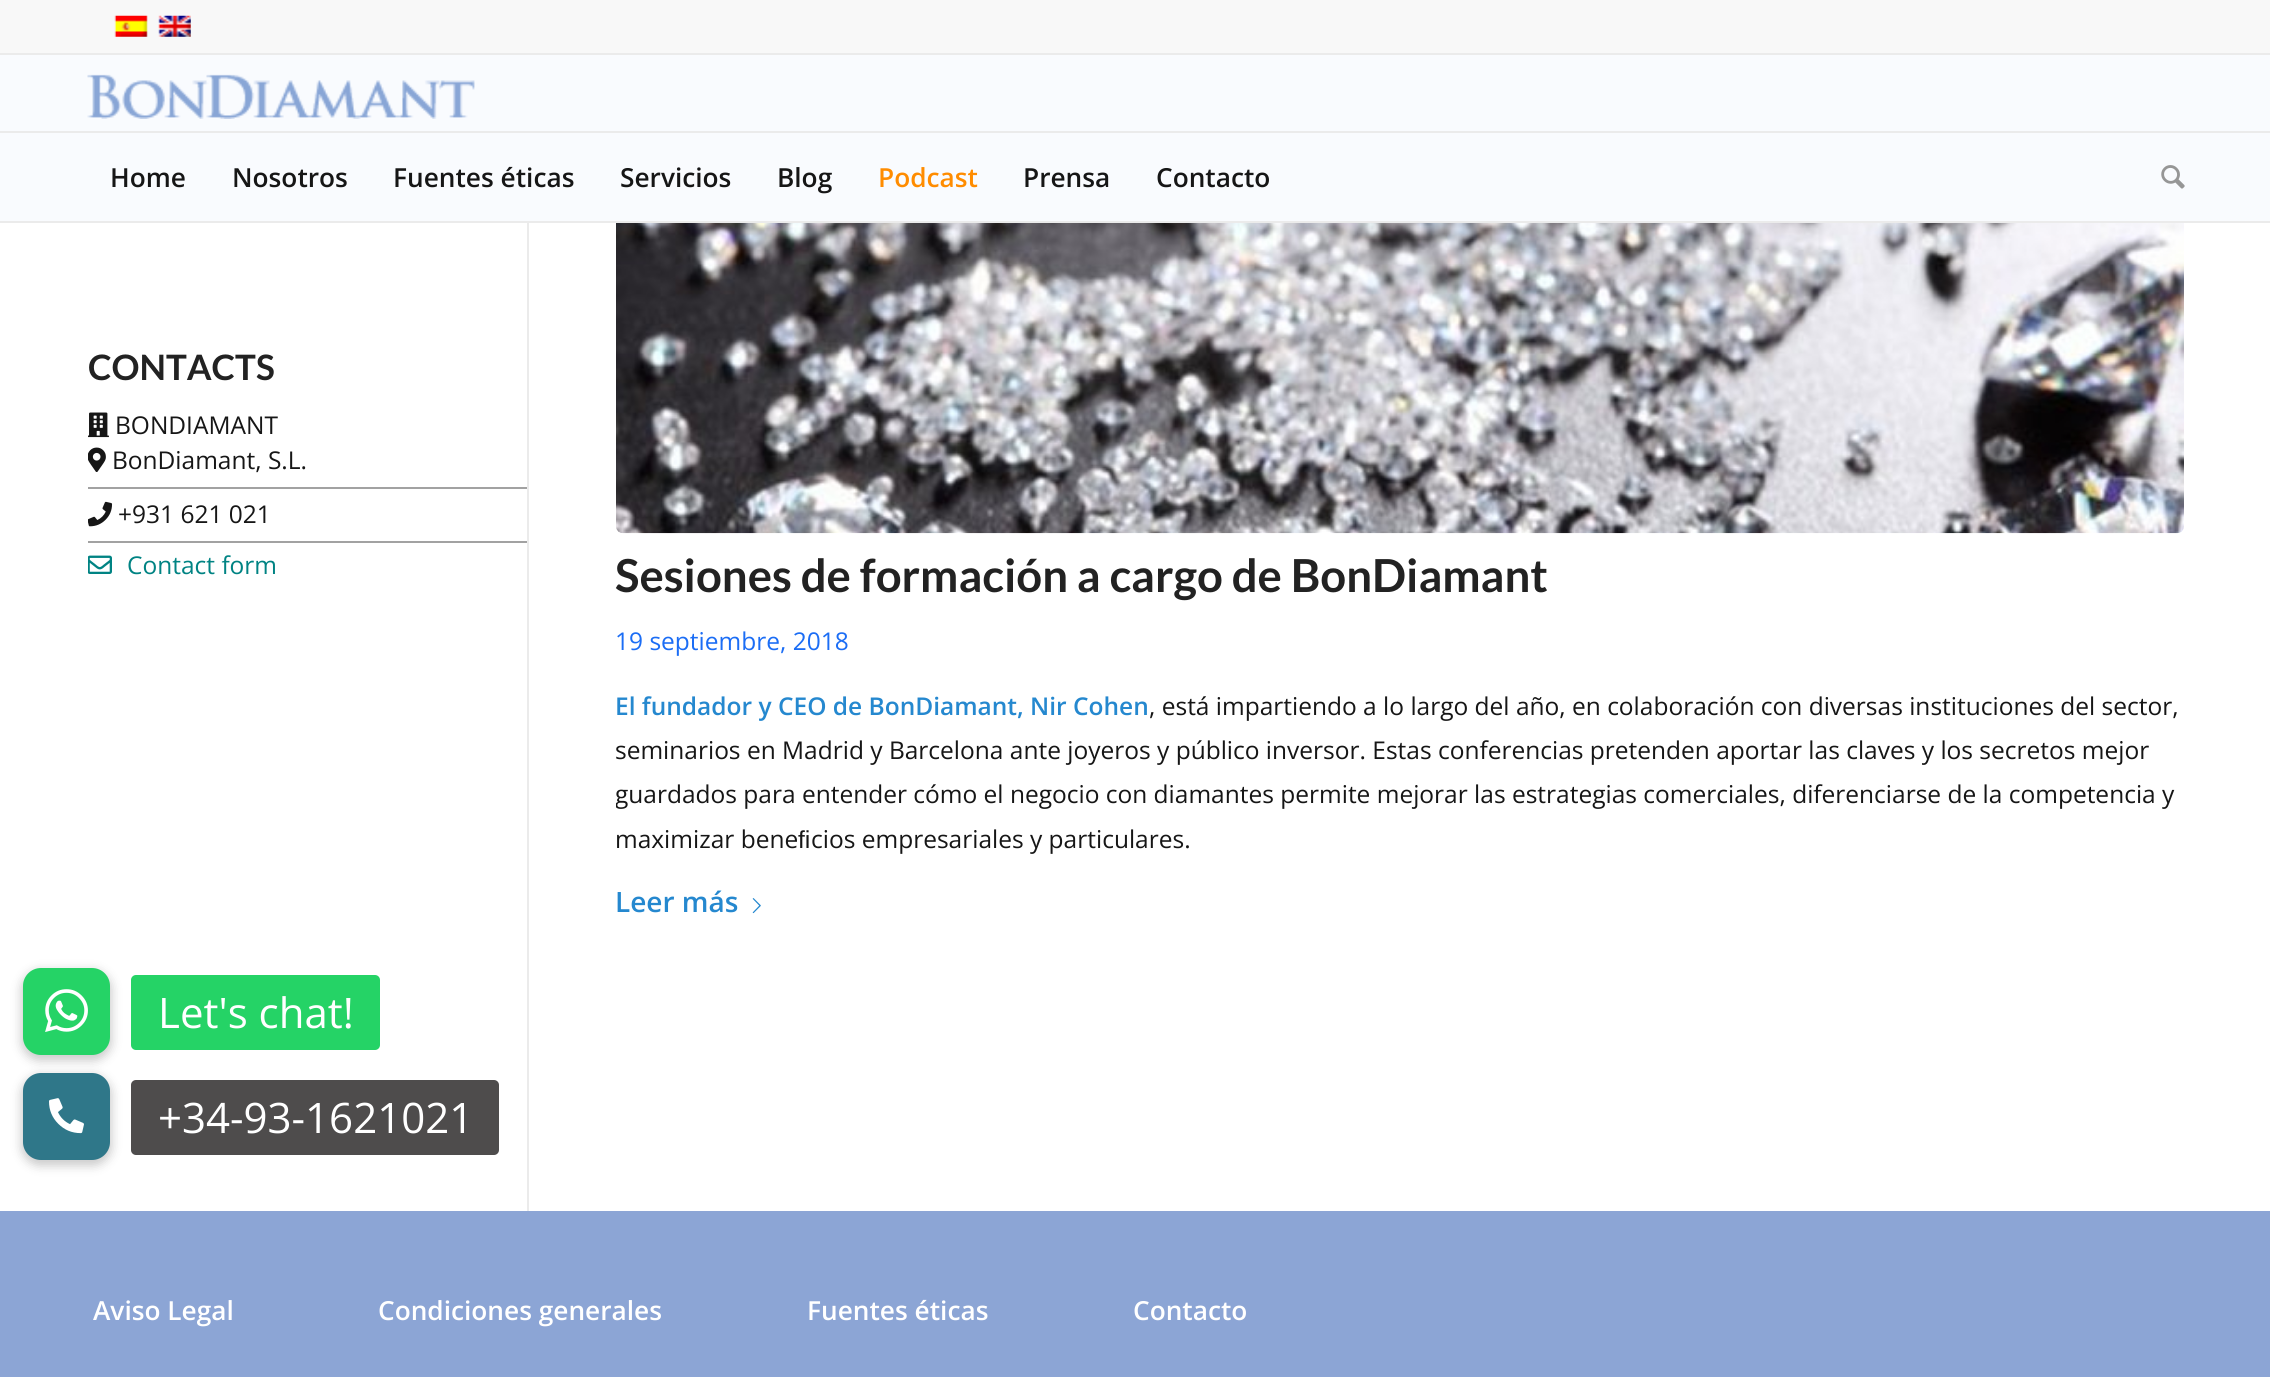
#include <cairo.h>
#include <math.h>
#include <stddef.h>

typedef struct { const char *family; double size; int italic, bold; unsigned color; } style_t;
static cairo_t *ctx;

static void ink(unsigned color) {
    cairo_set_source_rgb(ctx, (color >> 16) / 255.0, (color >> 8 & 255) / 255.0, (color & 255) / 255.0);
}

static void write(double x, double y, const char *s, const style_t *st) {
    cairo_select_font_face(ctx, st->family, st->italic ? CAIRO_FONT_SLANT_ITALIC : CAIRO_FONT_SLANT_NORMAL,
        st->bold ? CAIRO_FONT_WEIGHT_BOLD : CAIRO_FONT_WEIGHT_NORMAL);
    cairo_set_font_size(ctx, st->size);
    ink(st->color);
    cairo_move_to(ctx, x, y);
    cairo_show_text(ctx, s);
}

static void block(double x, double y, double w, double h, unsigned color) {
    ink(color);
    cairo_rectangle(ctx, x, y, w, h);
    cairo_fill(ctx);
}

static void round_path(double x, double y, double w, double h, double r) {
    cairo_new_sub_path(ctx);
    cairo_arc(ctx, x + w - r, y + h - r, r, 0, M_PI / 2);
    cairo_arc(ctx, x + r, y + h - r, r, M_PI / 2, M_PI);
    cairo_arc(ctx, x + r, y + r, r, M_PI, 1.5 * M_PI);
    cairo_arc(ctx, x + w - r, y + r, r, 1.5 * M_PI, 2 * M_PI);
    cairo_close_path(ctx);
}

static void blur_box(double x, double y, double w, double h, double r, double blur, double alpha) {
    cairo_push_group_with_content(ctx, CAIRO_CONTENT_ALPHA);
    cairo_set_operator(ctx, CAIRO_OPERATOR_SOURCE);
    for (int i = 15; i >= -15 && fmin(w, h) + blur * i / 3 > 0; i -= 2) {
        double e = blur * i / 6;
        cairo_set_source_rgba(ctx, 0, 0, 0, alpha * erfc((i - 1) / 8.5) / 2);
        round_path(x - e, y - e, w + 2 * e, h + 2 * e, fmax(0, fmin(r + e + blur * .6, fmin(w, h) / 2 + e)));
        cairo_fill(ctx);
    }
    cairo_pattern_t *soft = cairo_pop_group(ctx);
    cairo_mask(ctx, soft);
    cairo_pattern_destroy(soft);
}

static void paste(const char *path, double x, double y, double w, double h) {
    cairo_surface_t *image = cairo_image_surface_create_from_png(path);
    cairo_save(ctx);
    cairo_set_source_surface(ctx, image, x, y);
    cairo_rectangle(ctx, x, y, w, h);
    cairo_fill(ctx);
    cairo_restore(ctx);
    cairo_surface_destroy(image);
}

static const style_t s1 = {"Open Sans SemiBold", 26.25, 0, 0, 0x161616};
static const style_t s2 = {"Open Sans SemiBold", 26.25, 0, 0, 0xff8c00};
static const style_t s3 = {"Lato", 35, 0, 1, 0x222222};
static const style_t s4 = {"Open Sans", 24.5, 0, 0, 0x161616};
static const style_t s5 = {"Open Sans", 24.5, 0, 0, 0x008383};
static const style_t s6 = {"Lato", 45.5, 0, 1, 0x222222};
static const style_t s7 = {"Open Sans", 24.5, 0, 0, 0x1b6df5};
static const style_t s8 = {"Open Sans SemiBold", 24.5, 0, 0, 0x2588cf};
static const style_t s9 = {"Liberation Sans", 24.5, 0, 0, 0x161616};
static const style_t s10 = {"Open Sans SemiBold", 28, 0, 0, 0x2588cf};
static const style_t s11 = {"Open Sans SemiBold", 26.25, 0, 0, 0xffffff};
static const style_t s12 = {"Open Sans", 42, 0, 0, 0xffffff};

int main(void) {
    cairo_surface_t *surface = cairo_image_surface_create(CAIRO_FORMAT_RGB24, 2270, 1377);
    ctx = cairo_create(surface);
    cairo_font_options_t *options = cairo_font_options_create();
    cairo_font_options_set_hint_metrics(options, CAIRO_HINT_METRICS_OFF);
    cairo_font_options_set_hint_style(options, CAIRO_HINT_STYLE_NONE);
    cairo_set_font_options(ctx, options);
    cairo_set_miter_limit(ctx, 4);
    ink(0xffffff);
    cairo_paint(ctx);
    block(0, 0, 2270, 53, 0xf8f8f8);
    block(0, 53, 2270, 2, 0xebebeb);
    paste("pic1.png", 114, 15, 34, 22);
    paste("pic2.png", 158, 15, 33, 22);
    block(0, 133, 2270, 88, 0xf9fbfe);
    block(0, 221, 2270, 2, 0xebebeb);
    block(0, 55, 2270, 76, 0xf9fbfe);
    paste("pic3.png", 87, 74, 388, 45);
    block(0, 131, 2270, 2, 0xebebeb);
    write(110, 187, "Home", &s1);
    write(232, 187, "Nosotros", &s1);
    write(393, 187, "Fuentes éticas", &s1);
    write(620, 187, "Servicios", &s1);
    write(777, 187, "Blog", &s1);
    write(878, 187, "Podcast", &s2);
    write(1023, 187, "Prensa", &s1);
    write(1156, 187, "Contacto", &s1);
    paste("pic4.png", 2161, 165, 24, 24);
    write(88, 380, "CONTACTS", &s3);
    block(88, 487, 439, 2, 0xa2a2a2);
    paste("pic5.png", 88, 412, 21, 26);
    write(115, 434, "BONDIAMANT", &s4);
    paste("pic6.png", 88, 447, 18, 25);
    write(112, 469, "BonDiamant, S.L.", &s4);
    block(88, 541, 439, 2, 0xa2a2a2);
    paste("pic7.png", 88, 501, 25, 26);
    write(118, 523, "+931 621 021", &s4);
    paste("pic8.png", 88, 555, 24, 19);
    write(127, 574, "Contact form", &s5);
    block(527, 223, 2, 988, 0xebebeb);
    paste("pic9.png", 616, 223, 1568, 311);
    write(615, 592, "Sesiones de formación a cargo de BonDiamant", &s6);
    write(615, 650, "19 septiembre, 2018", &s7);
    write(615, 715, "El fundador y CEO de BonDiamant, Nir Cohen", &s8);
    write(1149, 715, ", está impartiendo a lo largo del año, en colaboración con diversas instituciones del sector,", &s4);
    write(615, 759, "seminarios en Madrid y Barcelona ante joyeros y público inversor. Estas conferencias pretenden aportar las claves y los secretos mejor", &s4);
    cairo_save(ctx);
    cairo_rectangle(ctx, 616, 551, 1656, 573);
    cairo_clip(ctx);
    write(615, 803, "guardados para entender cómo el negocio con diamantes permite mejorar las estrategias comerciales, diferenciarse de la competencia y", &s4);
    cairo_restore(ctx);
    write(615, 848, "maximizar bene", &s4);
    write(798, 848, "ﬁ", &s9);
    write(811, 848, "cios empresariales y particulares.", &s4);
    write(615, 912, "Leer más", &s10);
    paste("pic10.png", 752, 898, 9, 16);
    block(0, 1211, 2270, 166, 0x8ca5d5);
    write(93, 1320, "Aviso Legal", &s11);
    write(378, 1320, "Condiciones generales", &s11);
    write(807, 1320, "Fuentes éticas", &s11);
    write(1133, 1320, "Contacto", &s11);
    ink(0x000000);
    blur_box(21, 1075, 91, 91, 19, 5, 0.2);
    ink(0x2f7789);
    round_path(23, 1073, 87, 87, 18);
    cairo_fill(ctx);
    ink(0x000000);
    blur_box(21, 970, 91, 91, 19, 5, 0.2);
    ink(0x25d366);
    round_path(23, 968, 87, 87, 18);
    cairo_fill(ctx);
    paste("pic11.png", 45, 989, 43, 43);
    round_path(131, 975, 249, 75, 5);
    cairo_fill(ctx);
    write(158, 1028, "Let's chat!", &s12);
    paste("pic12.png", 49, 1098, 35, 36);
    ink(0x4e4c4c);
    round_path(131, 1080, 368, 75, 5);
    cairo_fill(ctx);
    write(158, 1133, "+34-93-1621021", &s12);
    cairo_surface_write_to_png(surface, "screenshot.png");
    cairo_font_options_destroy(options);
    cairo_destroy(ctx);
    cairo_surface_destroy(surface);
    return 0;
}
